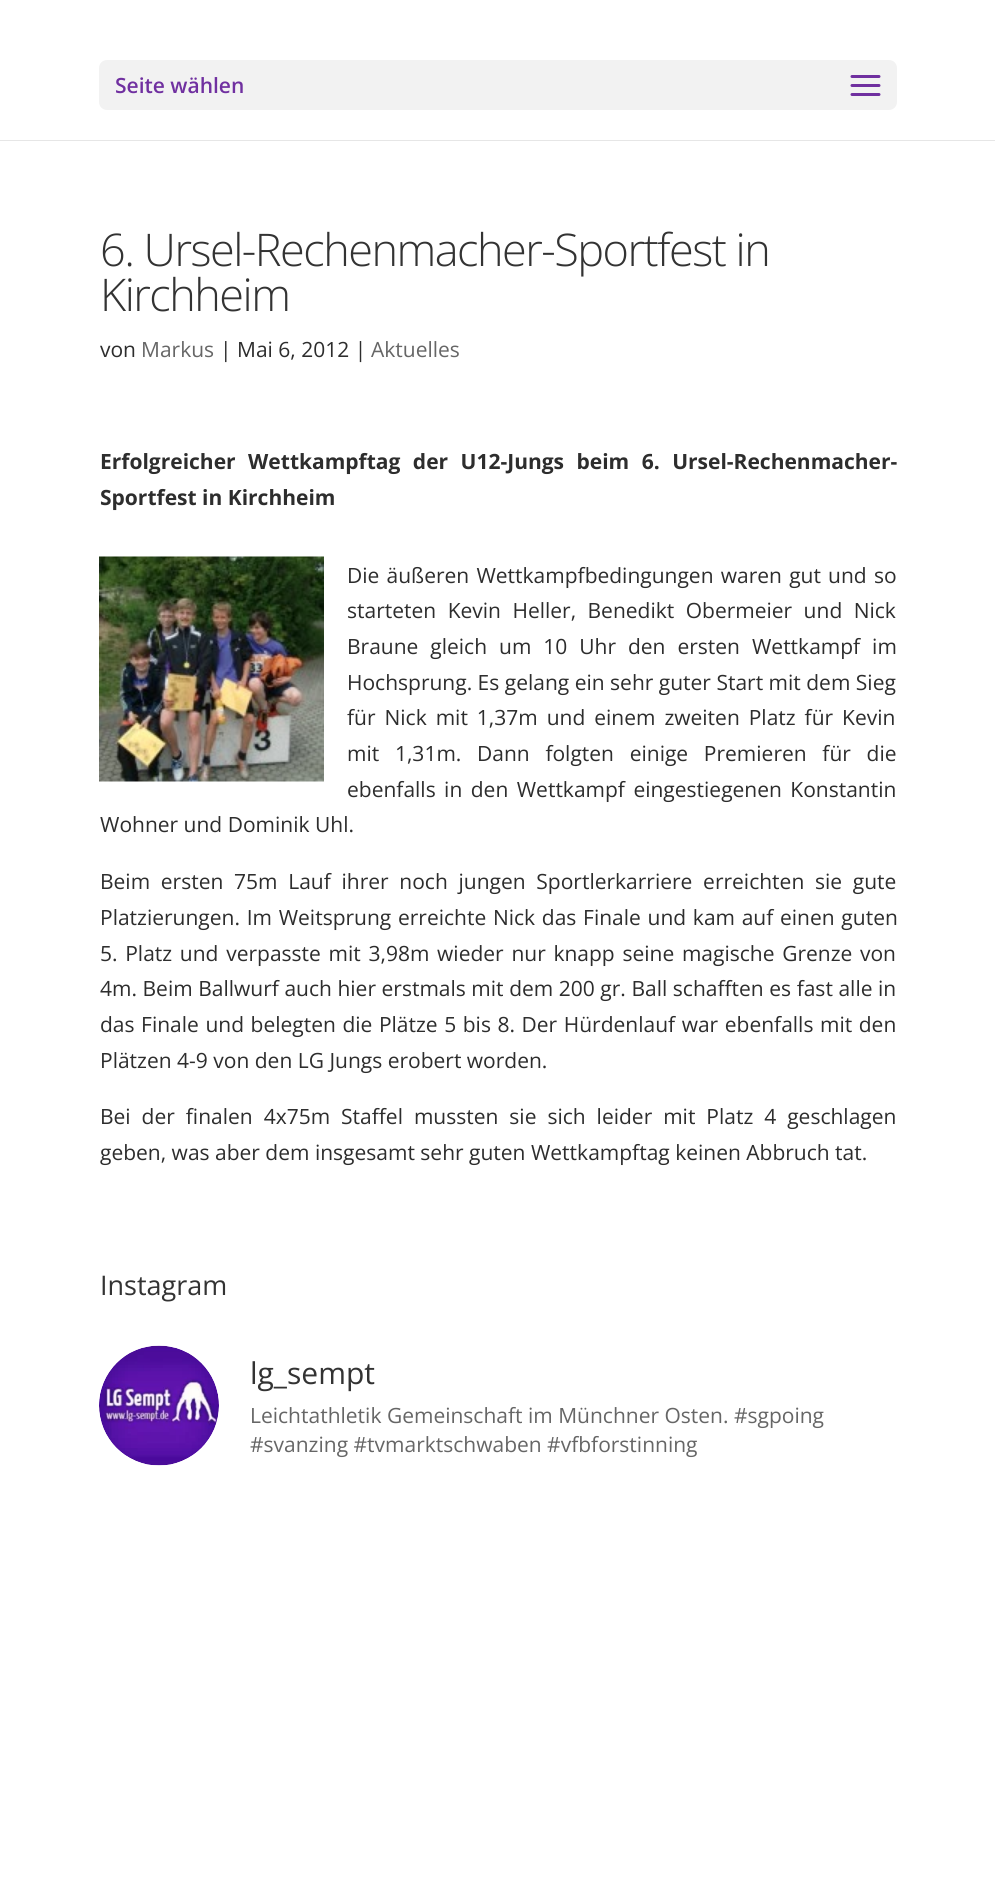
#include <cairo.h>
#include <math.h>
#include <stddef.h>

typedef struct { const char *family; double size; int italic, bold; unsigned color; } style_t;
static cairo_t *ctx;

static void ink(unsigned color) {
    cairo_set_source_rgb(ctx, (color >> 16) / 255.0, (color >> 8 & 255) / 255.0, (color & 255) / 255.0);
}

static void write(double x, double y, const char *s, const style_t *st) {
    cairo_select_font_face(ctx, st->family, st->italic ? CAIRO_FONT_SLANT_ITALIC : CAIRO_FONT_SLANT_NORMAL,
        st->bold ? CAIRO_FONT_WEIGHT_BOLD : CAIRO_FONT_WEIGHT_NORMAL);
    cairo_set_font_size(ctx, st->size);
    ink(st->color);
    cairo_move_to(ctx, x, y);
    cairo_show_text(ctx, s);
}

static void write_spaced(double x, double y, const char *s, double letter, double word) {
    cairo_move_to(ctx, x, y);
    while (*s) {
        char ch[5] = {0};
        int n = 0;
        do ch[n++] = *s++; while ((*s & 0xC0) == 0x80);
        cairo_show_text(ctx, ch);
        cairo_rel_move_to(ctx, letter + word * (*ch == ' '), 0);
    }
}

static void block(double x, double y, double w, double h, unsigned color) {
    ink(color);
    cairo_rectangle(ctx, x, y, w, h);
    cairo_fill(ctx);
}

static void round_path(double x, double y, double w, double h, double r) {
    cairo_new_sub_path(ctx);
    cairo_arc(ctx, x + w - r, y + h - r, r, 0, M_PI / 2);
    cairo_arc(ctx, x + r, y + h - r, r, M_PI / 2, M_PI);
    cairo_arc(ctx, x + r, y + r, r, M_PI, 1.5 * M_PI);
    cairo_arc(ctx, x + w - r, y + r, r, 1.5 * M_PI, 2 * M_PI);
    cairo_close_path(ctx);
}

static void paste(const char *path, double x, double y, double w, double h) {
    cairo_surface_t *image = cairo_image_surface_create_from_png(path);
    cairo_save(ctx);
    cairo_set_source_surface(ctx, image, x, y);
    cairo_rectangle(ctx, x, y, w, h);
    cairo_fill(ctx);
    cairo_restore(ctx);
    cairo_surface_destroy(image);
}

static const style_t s1 = {"Open Sans SemiBold", 21, 0, 0, 0x7030a0};
static const style_t s2 = {"Open Sans", 21, 0, 0, 0x2d2d2d};
static const style_t s3 = {"Open Sans", 21, 0, 0, 0x666666};
static const style_t s4 = {"Open Sans", 21, 0, 1, 0x2d2d2d};
static const style_t s5 = {"Open Sans", 27, 0, 0, 0x333333};
static const style_t s6 = {"Open Sans", 30, 0, 0, 0x333333};

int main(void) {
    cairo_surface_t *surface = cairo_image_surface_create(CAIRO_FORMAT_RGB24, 995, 1900);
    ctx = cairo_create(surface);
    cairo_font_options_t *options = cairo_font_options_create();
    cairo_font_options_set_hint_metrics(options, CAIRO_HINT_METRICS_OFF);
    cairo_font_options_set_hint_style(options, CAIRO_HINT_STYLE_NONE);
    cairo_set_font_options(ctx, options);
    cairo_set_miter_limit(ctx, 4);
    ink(0xffffff);
    cairo_paint(ctx);
    block(0, 140, 995, 1, 0xe6e6e6);
    ink(0xf2f2f2);
    round_path(99, 60, 798, 50, 8);
    cairo_fill(ctx);
    write(115, 93, "Seite wählen", &s1);
    paste("pic1.png", 850, 75, 31, 21);
    cairo_select_font_face(ctx, "Open Sans Light", CAIRO_FONT_SLANT_NORMAL, CAIRO_FONT_WEIGHT_NORMAL);
    cairo_set_font_size(ctx, 45);
    ink(0x333333);
    write_spaced(100, 266, "6. Ursel-Rechenmacher-Sportfest in", -1.5, 0);
    write_spaced(100, 311, "Kirchheim", -1.5, 0);
    write(100, 357, "von", &s2);
    write(141, 357, "Markus", &s3);
    write(220, 357, "| Mai 6, 2012 |", &s2);
    write(371, 357, "Aktuelles", &s3);
    cairo_select_font_face(ctx, "Open Sans", CAIRO_FONT_SLANT_NORMAL, CAIRO_FONT_WEIGHT_BOLD);
    ink(0x2d2d2d);
    write_spaced(100, 469, "Erfolgreicher Wettkampftag der U12-Jungs beim 6. Ursel-Rechenmacher-", 0, 7);
    write(100, 505, "Sportfest in Kirchheim", &s4);
    paste("pic2.png", 99, 556, 225, 226);
    cairo_select_font_face(ctx, "Open Sans", CAIRO_FONT_SLANT_NORMAL, CAIRO_FONT_WEIGHT_NORMAL);
    write_spaced(347, 583, "Die äußeren Wettkampfbedingungen waren gut und so", 0, 1.75);
    write_spaced(347, 618, "starteten Kevin Heller, Benedikt Obermeier und Nick", 0, 6);
    write_spaced(347, 654, "Braune gleich um 10 Uhr den ersten Wettkampf im", 0, 6.5);
    write(347, 690, "Hochsprung. Es gelang ein sehr guter Start mit dem Sieg", &s2);
    write_spaced(347, 725, "für Nick mit 1,37m und einem zweiten Platz für Kevin", 0, 3.5);
    write_spaced(347, 761, "mit 1,31m. Dann folgten einige Premieren für die", 0, 10.25);
    write_spaced(347, 797, "ebenfalls in den Wettkampf eingestiegenen Konstantin", 0, 3);
    write(100, 832, "Wohner und Dominik Uhl.", &s2);
    write_spaced(100, 889, "Beim ersten 75m Lauf ihrer noch jungen Sportlerkarriere erreichten sie gute", 0, 5.25);
    write_spaced(100, 925, "Platzierungen. Im Weitsprung erreichte Nick das Finale und kam auf einen guten", 0, 1.25);
    write_spaced(100, 961, "5. Platz und verpasste mit 3,98m wieder nur knapp seine magische Grenze von", 0, 2.25);
    write_spaced(100, 996, "4m. Beim Ballwurf auch hier erstmals mit dem 200 gr. Ball schafften es fast alle in", 0, 0.1);
    write_spaced(100, 1032, "das Finale und belegten die Plätze 5 bis 8. Der Hürdenlauf war ebenfalls mit den", 0, 1.1);
    write(100, 1068, "Plätzen 4-9 von den LG Jungs erobert worden.", &s2);
    write_spaced(100, 1124, "Bei der finalen 4x75m Staffel mussten sie sich leider mit Platz 4 geschlagen", 0, 5.5);
    write(100, 1160, "geben, was aber dem insgesamt sehr guten Wettkampftag keinen Abbruch tat.", &s2);
    write(100, 1295, "Instagram", &s5);
    paste("pic3.png", 99, 1345, 120, 121);
    write(250, 1384, "lg_sempt", &s6);
    write(250, 1423, "Leichtathletik Gemeinschaft im Münchner Osten. #sgpoing", &s3);
    write(250, 1452, "#svanzing #tvmarktschwaben #vfbforstinning", &s3);
    cairo_surface_write_to_png(surface, "screenshot.png");
    cairo_font_options_destroy(options);
    cairo_destroy(ctx);
    cairo_surface_destroy(surface);
    return 0;
}
